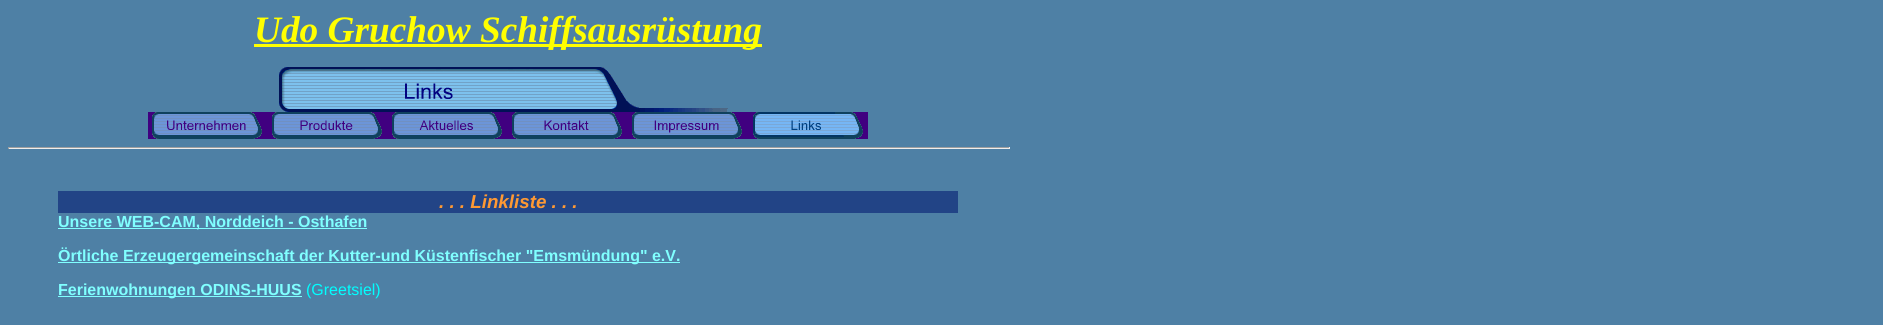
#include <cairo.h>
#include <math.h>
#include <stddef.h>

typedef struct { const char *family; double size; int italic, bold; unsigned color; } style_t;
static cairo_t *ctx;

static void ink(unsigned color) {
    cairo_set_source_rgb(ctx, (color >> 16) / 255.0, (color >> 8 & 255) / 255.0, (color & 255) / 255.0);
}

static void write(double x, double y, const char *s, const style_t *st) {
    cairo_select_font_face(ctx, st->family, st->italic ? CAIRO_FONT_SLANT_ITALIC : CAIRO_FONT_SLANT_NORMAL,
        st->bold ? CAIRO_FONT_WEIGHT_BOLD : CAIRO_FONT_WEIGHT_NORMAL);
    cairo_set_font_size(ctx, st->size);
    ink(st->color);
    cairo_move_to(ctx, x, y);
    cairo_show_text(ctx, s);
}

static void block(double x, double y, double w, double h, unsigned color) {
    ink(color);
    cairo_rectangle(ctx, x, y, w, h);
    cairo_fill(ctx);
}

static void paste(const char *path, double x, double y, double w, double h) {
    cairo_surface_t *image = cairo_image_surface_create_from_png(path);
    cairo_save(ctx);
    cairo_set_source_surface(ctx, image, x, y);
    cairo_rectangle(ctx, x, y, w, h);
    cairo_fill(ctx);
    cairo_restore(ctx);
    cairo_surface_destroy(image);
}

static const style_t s1 = {"Liberation Serif", 37.3, 1, 1, 0xffff00};
static const style_t s2 = {"Liberation Sans", 18.75, 1, 1, 0xff9933};
static const style_t s3 = {"Liberation Sans", 16, 0, 1, 0x80ffff};
static const style_t s4 = {"Liberation Sans", 16, 0, 0, 0x00ffff};

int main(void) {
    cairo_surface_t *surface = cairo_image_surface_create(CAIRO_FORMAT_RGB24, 1883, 325);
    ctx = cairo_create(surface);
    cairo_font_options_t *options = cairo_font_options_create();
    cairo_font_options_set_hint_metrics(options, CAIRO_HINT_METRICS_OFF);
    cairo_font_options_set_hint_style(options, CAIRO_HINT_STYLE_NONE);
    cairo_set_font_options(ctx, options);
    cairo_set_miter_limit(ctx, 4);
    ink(0x4e80a5);
    cairo_paint(ctx);
    block(254, 44, 508, 3, 0xffff00);
    write(254, 42, "Udo Gruchow Schiffsausrüstung", &s1);
    paste("pic1.png", 279, 67, 449, 45);
    paste("pic2.png", 148, 112, 120, 27);
    paste("pic3.png", 268, 112, 120, 27);
    paste("pic4.png", 388, 112, 120, 27);
    paste("pic5.png", 508, 112, 120, 27);
    paste("pic6.png", 628, 112, 120, 27);
    paste("pic7.png", 748, 112, 120, 27);
    block(8, 147, 1002, 1, 0x9f9f9f);
    block(1009, 147, 1, 2, 0xeeeeee);
    block(8, 148, 1002, 1, 0xeeeeee);
    block(8, 147, 1, 2, 0x9f9f9f);
    block(58, 191, 900, 22, 0x224486);
    write(439, 208, ". . . Linkliste . . .", &s2);
    block(58, 228, 309, 1, 0x80ffff);
    write(58, 227, "Unsere WEB-CAM, Norddeich - Osthafen", &s3);
    block(58, 262, 622, 1, 0x80ffff);
    write(58, 261, "Örtliche Erzeugergemeinschaft der Kutter-und Küstenfischer \"Emsmündung\" e.V.", &s3);
    block(58, 296, 244, 1, 0x80ffff);
    write(58, 295, "Ferienwohnungen ODINS-HUUS", &s3);
    write(306, 295, "(Greetsiel)", &s4);
    cairo_surface_write_to_png(surface, "screenshot.png");
    cairo_font_options_destroy(options);
    cairo_destroy(ctx);
    cairo_surface_destroy(surface);
    return 0;
}
